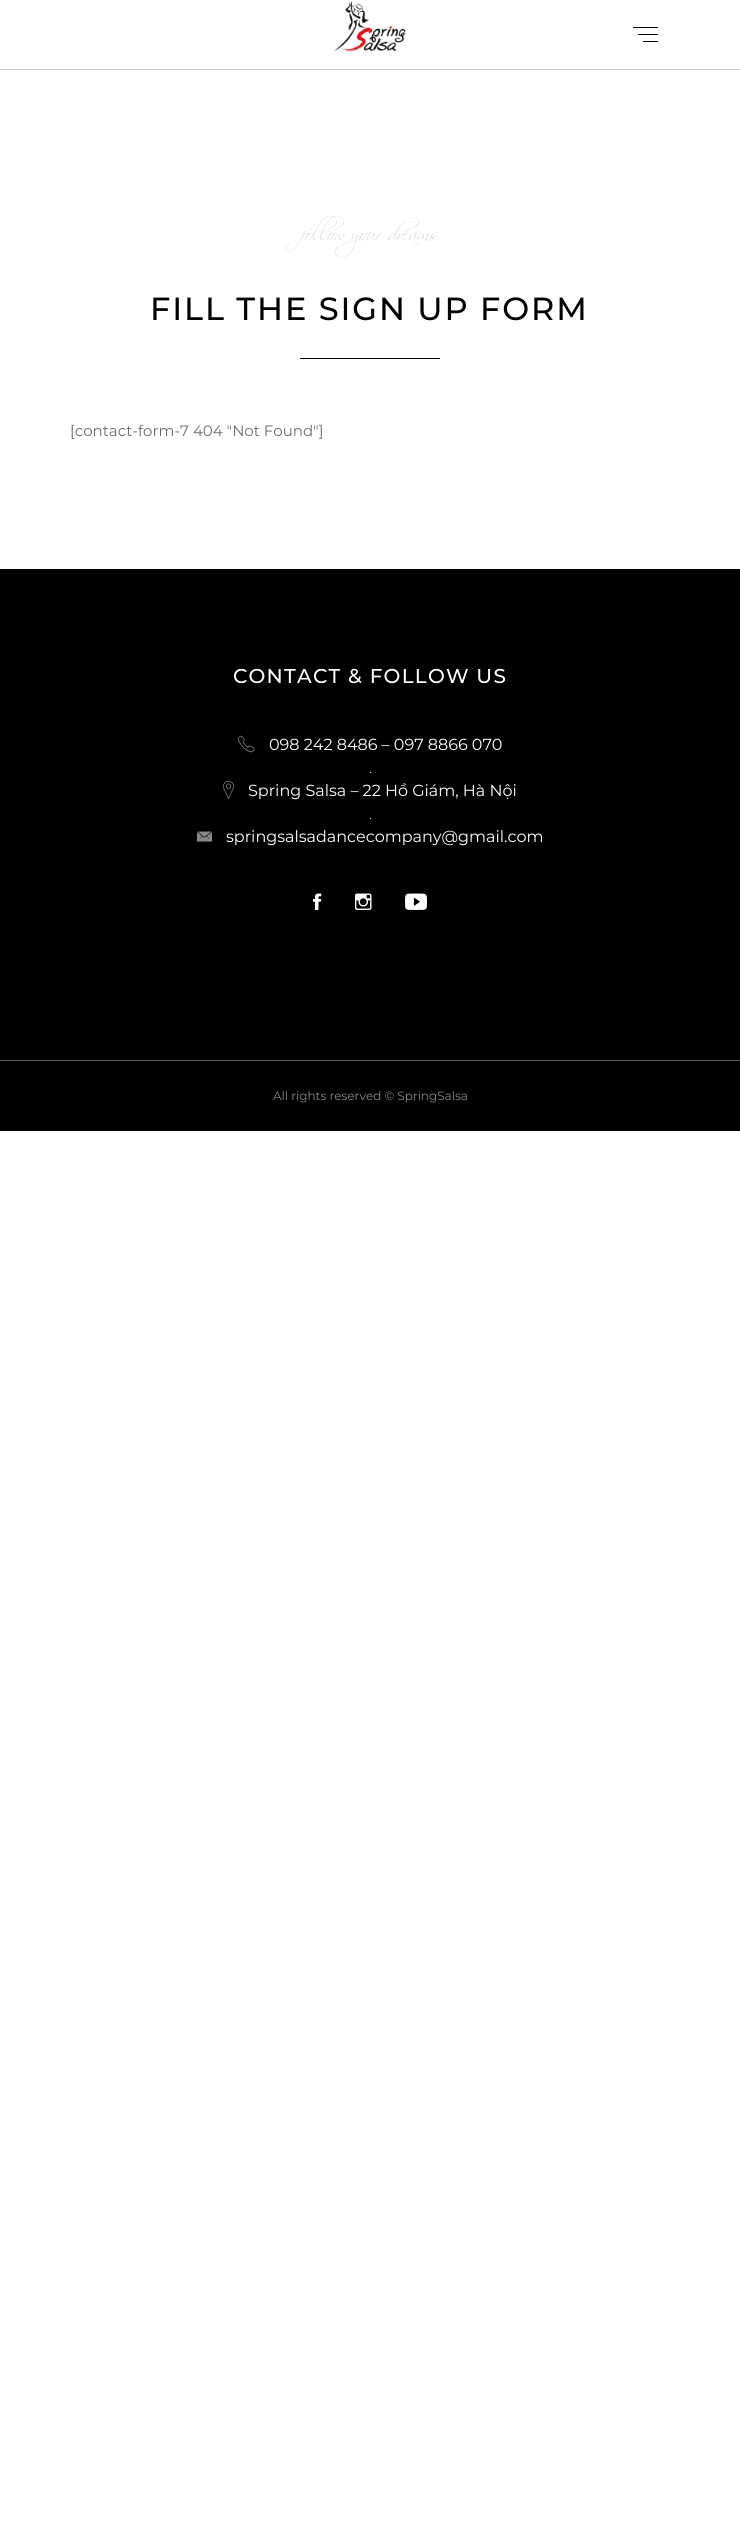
#include <cairo.h>
#include <math.h>
#include <stddef.h>

typedef struct { const char *family; double size; int italic, bold; unsigned color; } style_t;
static cairo_t *ctx;

static void ink(unsigned color) {
    cairo_set_source_rgb(ctx, (color >> 16) / 255.0, (color >> 8 & 255) / 255.0, (color & 255) / 255.0);
}

static void write(double x, double y, const char *s, const style_t *st) {
    cairo_select_font_face(ctx, st->family, st->italic ? CAIRO_FONT_SLANT_ITALIC : CAIRO_FONT_SLANT_NORMAL,
        st->bold ? CAIRO_FONT_WEIGHT_BOLD : CAIRO_FONT_WEIGHT_NORMAL);
    cairo_set_font_size(ctx, st->size);
    ink(st->color);
    cairo_move_to(ctx, x, y);
    cairo_show_text(ctx, s);
}

static void write_spaced(double x, double y, const char *s, double letter, double word) {
    cairo_move_to(ctx, x, y);
    while (*s) {
        char ch[5] = {0};
        int n = 0;
        do ch[n++] = *s++; while ((*s & 0xC0) == 0x80);
        cairo_show_text(ctx, ch);
        cairo_rel_move_to(ctx, letter + word * (*ch == ' '), 0);
    }
}

static void block(double x, double y, double w, double h, unsigned color) {
    ink(color);
    cairo_rectangle(ctx, x, y, w, h);
    cairo_fill(ctx);
}

static void paste(const char *path, double x, double y, double w, double h) {
    cairo_surface_t *image = cairo_image_surface_create_from_png(path);
    cairo_save(ctx);
    cairo_set_source_surface(ctx, image, x, y);
    cairo_rectangle(ctx, x, y, w, h);
    cairo_fill(ctx);
    cairo_restore(ctx);
    cairo_surface_destroy(image);
}

static const style_t s1 = {"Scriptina", 20, 0, 0, 0xdddcdc};
static const style_t s2 = {"Montserrat", 15, 0, 0, 0x6c6c6c};
static const style_t s3 = {"Montserrat", 16, 0, 0, 0xffffff};
static const style_t s4 = {"Montserrat", 12, 0, 0, 0x8a8a8a};

int main(void) {
    cairo_surface_t *surface = cairo_image_surface_create(CAIRO_FORMAT_RGB24, 740, 2543);
    ctx = cairo_create(surface);
    cairo_font_options_t *options = cairo_font_options_create();
    cairo_font_options_set_hint_metrics(options, CAIRO_HINT_METRICS_OFF);
    cairo_font_options_set_hint_style(options, CAIRO_HINT_STYLE_NONE);
    cairo_set_font_options(ctx, options);
    cairo_set_miter_limit(ctx, 4);
    ink(0xffffff);
    cairo_paint(ctx);
    block(0, 69, 740, 1, 0xc8c8c8);
    paste("pic1.png", 334, 1, 72, 51);
    block(633, 27, 25, 1, 0x000000);
    block(638, 34, 20, 1, 0x000000);
    block(643, 41, 15, 1, 0x000000);
    write(300, 240, "follow your dreams", &s1);
    cairo_select_font_face(ctx, "Montserrat Medium", CAIRO_FONT_SLANT_NORMAL, CAIRO_FONT_WEIGHT_NORMAL);
    cairo_set_font_size(ctx, 32);
    ink(0x000000);
    write_spaced(150, 320, "FILL THE SIGN UP FORM", 1.9, 0);
    block(300, 358, 140, 1, 0x000000);
    write(70, 436, "[contact-form-7 404 \"Not Found\"]", &s2);
    block(0, 569, 740, 491, 0x000000);
    cairo_select_font_face(ctx, "Montserrat Medium", CAIRO_FONT_SLANT_NORMAL, CAIRO_FONT_WEIGHT_NORMAL);
    cairo_set_font_size(ctx, 20);
    ink(0xffffff);
    write_spaced(233, 683, "CONTACT & FOLLOW US", 1.25, 0);
    paste("pic2.png", 238, 735, 17, 18);
    write(269, 750, "098 242 8486 – 097 8866 070", &s3);
    block(370, 772, 1, 1, 0xebebeb);
    paste("pic3.png", 223, 780, 11, 20);
    write(248, 796, "Spring Salsa – 22 Hồ Giám, Hà Nội", &s3);
    block(370, 818, 1, 1, 0xebebeb);
    paste("pic4.png", 197, 831, 15, 11);
    write(226, 842, "springsalsadancecompany@gmail.com", &s3);
    paste("pic5.png", 313, 893, 9, 17);
    paste("pic6.png", 355, 893, 17, 17);
    paste("pic7.png", 405, 893, 22, 17);
    block(0, 1061, 740, 70, 0x000000);
    block(0, 1060, 740, 1, 0x5b5b5b);
    write(273, 1100, "All rights reserved © SpringSalsa", &s4);
    cairo_surface_write_to_png(surface, "screenshot.png");
    cairo_font_options_destroy(options);
    cairo_destroy(ctx);
    cairo_surface_destroy(surface);
    return 0;
}
